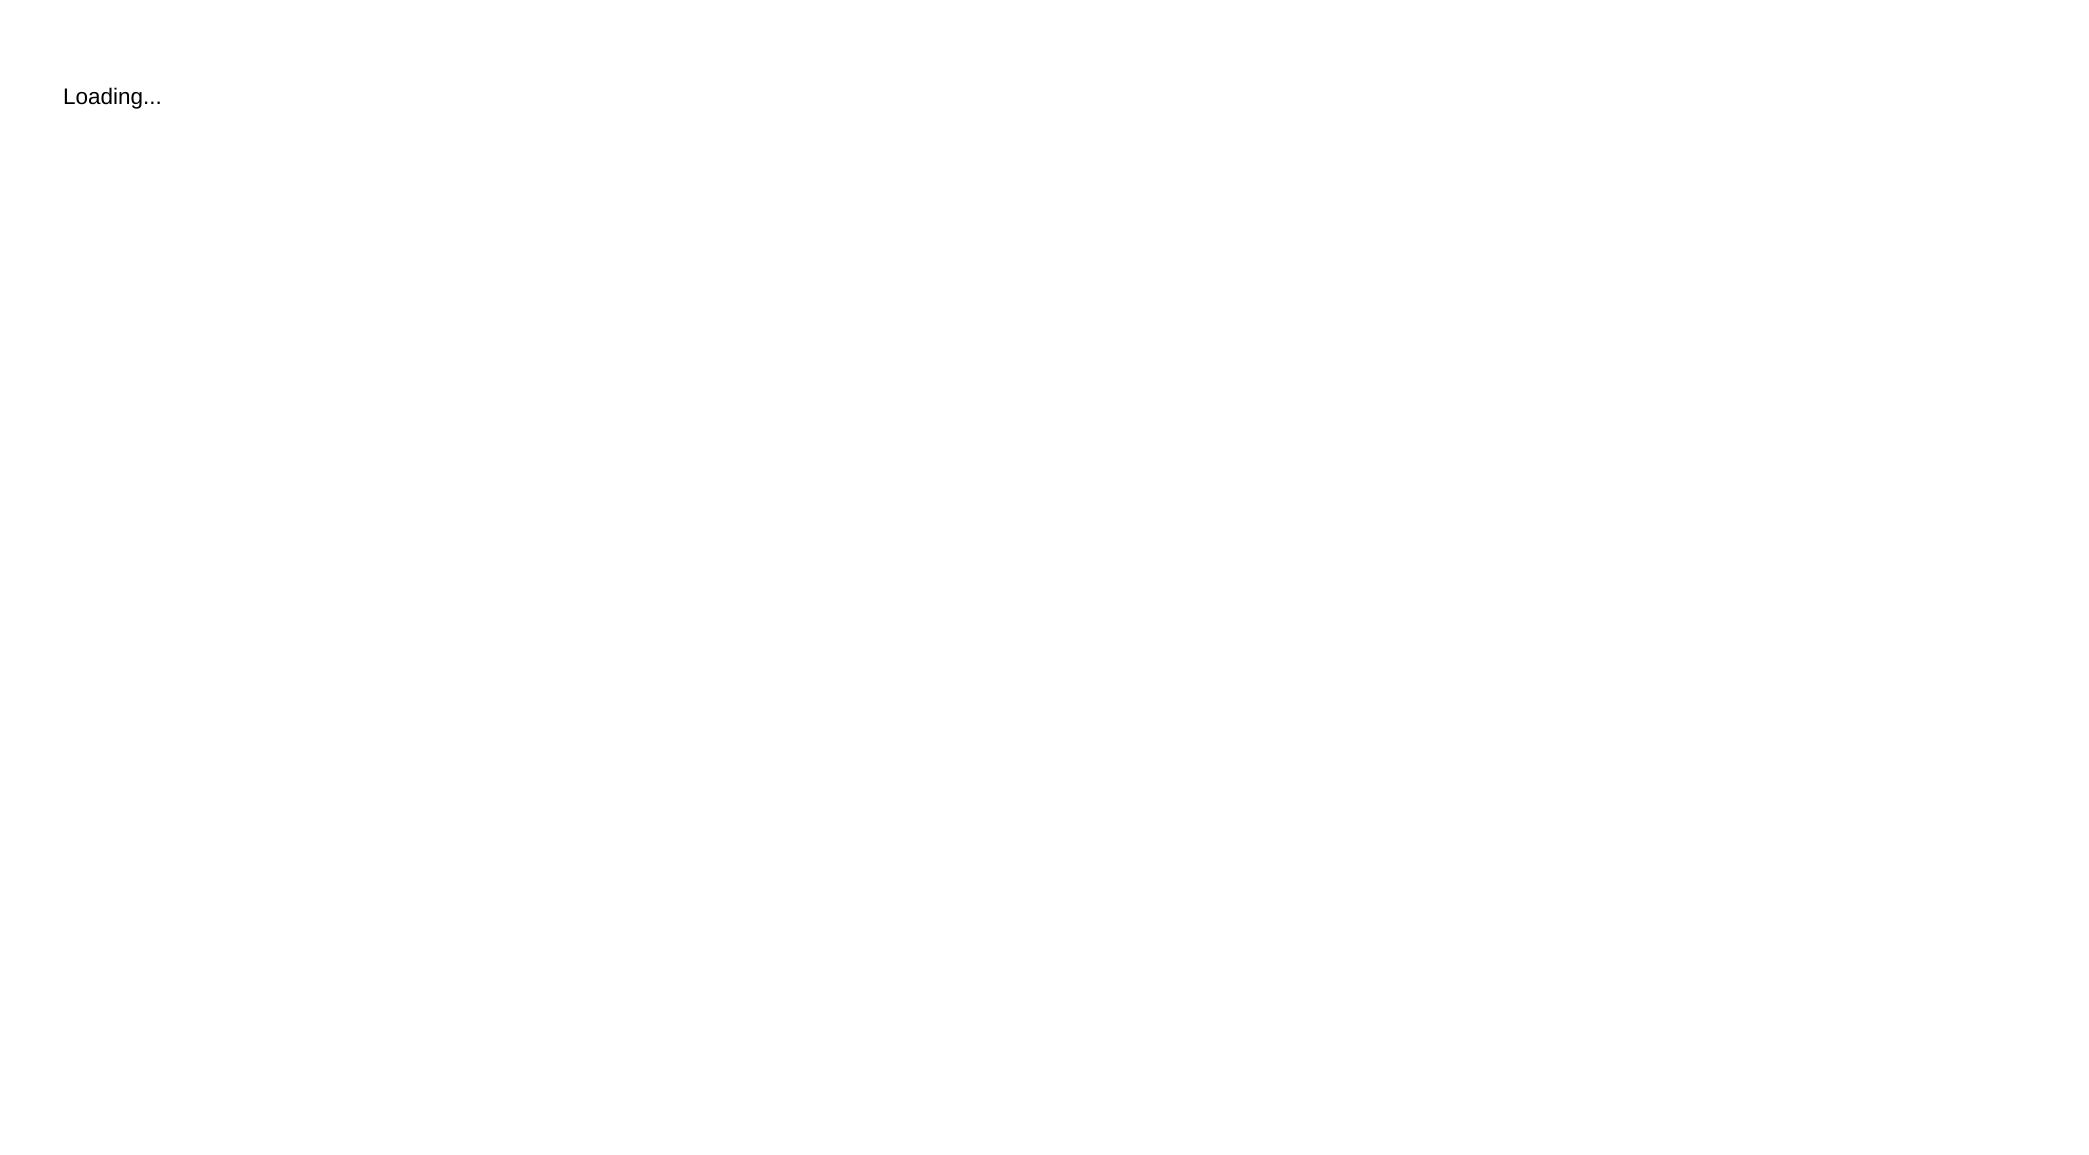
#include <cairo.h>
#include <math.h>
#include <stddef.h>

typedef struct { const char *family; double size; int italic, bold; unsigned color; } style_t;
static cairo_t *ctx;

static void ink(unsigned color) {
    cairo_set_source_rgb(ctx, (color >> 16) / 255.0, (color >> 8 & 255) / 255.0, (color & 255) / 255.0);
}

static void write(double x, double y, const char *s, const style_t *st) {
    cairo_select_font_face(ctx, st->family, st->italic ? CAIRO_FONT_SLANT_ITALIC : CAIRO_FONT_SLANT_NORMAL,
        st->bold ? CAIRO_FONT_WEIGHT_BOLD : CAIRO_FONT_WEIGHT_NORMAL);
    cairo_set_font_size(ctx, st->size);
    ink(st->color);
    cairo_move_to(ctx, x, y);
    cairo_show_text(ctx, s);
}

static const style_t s1 = {"Liberation Sans", 22.5, 0, 0, 0x000000};

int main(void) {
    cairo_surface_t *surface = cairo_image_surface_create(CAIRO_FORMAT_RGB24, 2089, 1155);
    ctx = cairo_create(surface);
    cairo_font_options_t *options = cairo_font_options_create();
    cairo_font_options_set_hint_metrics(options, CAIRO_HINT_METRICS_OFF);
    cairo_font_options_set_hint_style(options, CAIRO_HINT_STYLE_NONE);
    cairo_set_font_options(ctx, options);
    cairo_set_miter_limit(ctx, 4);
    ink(0xffffff);
    cairo_paint(ctx);
    write(63, 104, "Loading...", &s1);
    cairo_surface_write_to_png(surface, "screenshot.png");
    cairo_font_options_destroy(options);
    cairo_destroy(ctx);
    cairo_surface_destroy(surface);
    return 0;
}
